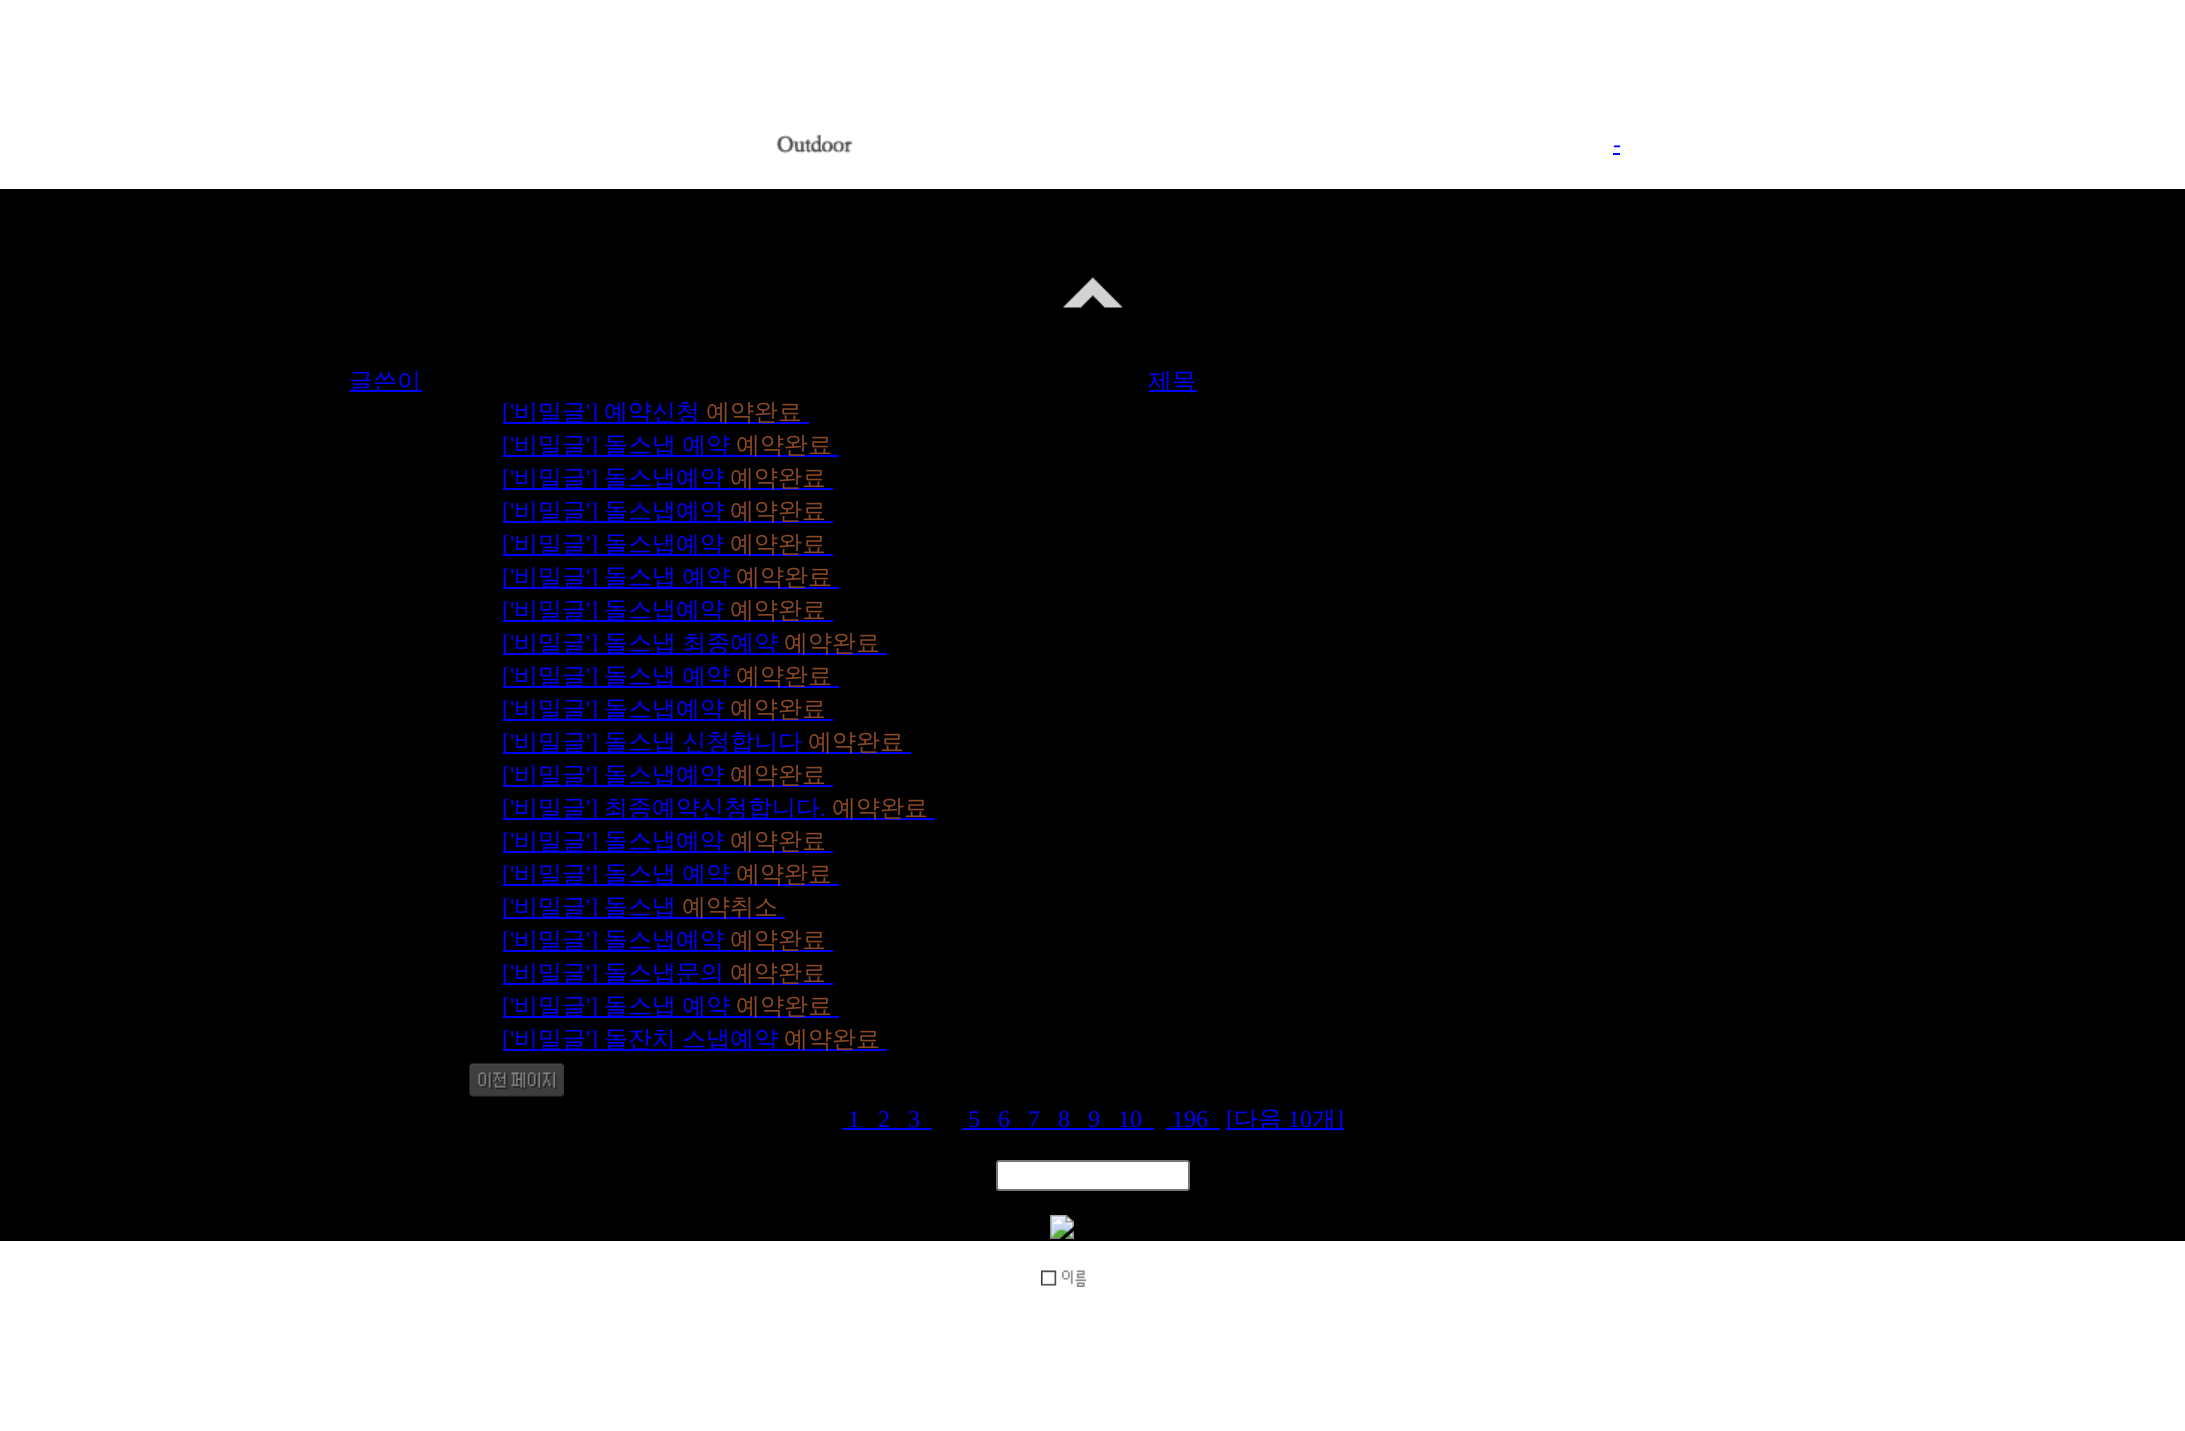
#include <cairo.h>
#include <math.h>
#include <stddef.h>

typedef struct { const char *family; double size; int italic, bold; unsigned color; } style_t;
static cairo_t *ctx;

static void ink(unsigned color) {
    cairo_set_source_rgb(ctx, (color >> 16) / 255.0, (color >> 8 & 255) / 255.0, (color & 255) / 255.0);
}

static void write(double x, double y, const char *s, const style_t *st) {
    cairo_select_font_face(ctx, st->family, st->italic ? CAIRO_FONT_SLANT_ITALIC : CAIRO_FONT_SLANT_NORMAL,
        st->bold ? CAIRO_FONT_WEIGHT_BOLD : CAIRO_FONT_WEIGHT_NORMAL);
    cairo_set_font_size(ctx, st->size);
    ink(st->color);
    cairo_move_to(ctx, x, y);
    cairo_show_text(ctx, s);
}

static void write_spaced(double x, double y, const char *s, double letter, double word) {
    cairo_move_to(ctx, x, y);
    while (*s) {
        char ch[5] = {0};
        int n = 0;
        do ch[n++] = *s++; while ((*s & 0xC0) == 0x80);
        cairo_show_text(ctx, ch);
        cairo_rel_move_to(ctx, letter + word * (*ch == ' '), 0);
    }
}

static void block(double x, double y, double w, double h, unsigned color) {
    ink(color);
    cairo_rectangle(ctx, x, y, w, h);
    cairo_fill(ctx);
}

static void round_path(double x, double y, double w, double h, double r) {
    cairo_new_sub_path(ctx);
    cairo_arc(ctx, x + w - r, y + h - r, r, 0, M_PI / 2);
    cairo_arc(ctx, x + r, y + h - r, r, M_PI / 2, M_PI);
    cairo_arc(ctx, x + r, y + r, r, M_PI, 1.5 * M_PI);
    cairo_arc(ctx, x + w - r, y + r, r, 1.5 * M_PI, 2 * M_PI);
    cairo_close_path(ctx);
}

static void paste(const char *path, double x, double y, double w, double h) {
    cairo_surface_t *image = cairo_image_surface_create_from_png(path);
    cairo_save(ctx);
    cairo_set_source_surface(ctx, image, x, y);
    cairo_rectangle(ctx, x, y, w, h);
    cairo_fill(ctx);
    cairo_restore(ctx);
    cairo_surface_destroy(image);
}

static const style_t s1 = {"Liberation Serif", 24, 0, 0, 0x0000ff};
static const style_t s2 = {"WenQuanYi Zen Hei Medium", 24, 0, 0, 0x0000ff};
static const style_t s3 = {"WenQuanYi Zen Hei Medium", 24, 0, 0, 0x8a4924};

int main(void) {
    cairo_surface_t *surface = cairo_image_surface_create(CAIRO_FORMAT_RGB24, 2185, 1431);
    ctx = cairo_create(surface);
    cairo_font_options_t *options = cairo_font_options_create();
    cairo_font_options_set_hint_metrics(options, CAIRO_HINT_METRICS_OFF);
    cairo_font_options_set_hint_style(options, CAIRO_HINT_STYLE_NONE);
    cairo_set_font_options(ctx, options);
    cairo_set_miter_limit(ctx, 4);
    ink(0xffffff);
    cairo_paint(ctx);
    paste("pic1.png", 776, 134, 77, 20);
    write(1613, 152, "-", &s1);
    block(1613, 153, 7, 2, 0x0000ff);
    block(0, 189, 2185, 1052, 0x000000);
    paste("pic2.png", 1063, 277, 60, 31);
    block(350, 390, 72, 2, 0x0000ff);
    write(349, 389, "글쓴이", &s2);
    block(1149, 390, 48, 2, 0x0000ff);
    write(1148, 389, "제목", &s2);
    block(503, 422, 306, 2, 0x0000ff);
    write(502, 420, "['", &s1);
    write(514, 420, "비밀글", &s2);
    write(586, 420, "']", &s1);
    write(604, 420, "예약신청", &s2);
    write(706, 420, "예약완료", &s3);
    block(503, 455, 336, 2, 0x0000ff);
    write(502, 453, "['", &s1);
    write(514, 453, "비밀글", &s2);
    write(586, 453, "']", &s1);
    cairo_select_font_face(ctx, "WenQuanYi Zen Hei Medium", CAIRO_FONT_SLANT_NORMAL, CAIRO_FONT_WEIGHT_NORMAL);
    write_spaced(604, 453, "돌스냅 예약", 0, -1);
    write(736, 453, "예약완료", &s3);
    block(503, 488, 330, 2, 0x0000ff);
    write(502, 486, "['", &s1);
    write(514, 486, "비밀글", &s2);
    write(586, 486, "']", &s1);
    write(604, 486, "돌스냅예약", &s2);
    write(730, 486, "예약완료", &s3);
    block(503, 521, 330, 2, 0x0000ff);
    write(502, 519, "['", &s1);
    write(514, 519, "비밀글", &s2);
    write(586, 519, "']", &s1);
    write(604, 519, "돌스냅예약", &s2);
    write(730, 519, "예약완료", &s3);
    block(503, 554, 330, 2, 0x0000ff);
    write(502, 552, "['", &s1);
    write(514, 552, "비밀글", &s2);
    write(586, 552, "']", &s1);
    write(604, 552, "돌스냅예약", &s2);
    write(730, 552, "예약완료", &s3);
    block(503, 587, 336, 2, 0x0000ff);
    write(502, 585, "['", &s1);
    write(514, 585, "비밀글", &s2);
    write(586, 585, "']", &s1);
    cairo_select_font_face(ctx, "WenQuanYi Zen Hei Medium", CAIRO_FONT_SLANT_NORMAL, CAIRO_FONT_WEIGHT_NORMAL);
    write_spaced(604, 585, "돌스냅 예약", 0, -1);
    write(736, 585, "예약완료", &s3);
    block(503, 620, 330, 2, 0x0000ff);
    write(502, 618, "['", &s1);
    write(514, 618, "비밀글", &s2);
    write(586, 618, "']", &s1);
    write(604, 618, "돌스냅예약", &s2);
    write(730, 618, "예약완료", &s3);
    block(503, 653, 384, 2, 0x0000ff);
    write(502, 651, "['", &s1);
    write(514, 651, "비밀글", &s2);
    write(586, 651, "']", &s1);
    cairo_select_font_face(ctx, "WenQuanYi Zen Hei Medium", CAIRO_FONT_SLANT_NORMAL, CAIRO_FONT_WEIGHT_NORMAL);
    write_spaced(604, 651, "돌스냅 최종예약", 0, -1);
    write(784, 651, "예약완료", &s3);
    block(503, 686, 336, 2, 0x0000ff);
    write(502, 684, "['", &s1);
    write(514, 684, "비밀글", &s2);
    write(586, 684, "']", &s1);
    cairo_select_font_face(ctx, "WenQuanYi Zen Hei Medium", CAIRO_FONT_SLANT_NORMAL, CAIRO_FONT_WEIGHT_NORMAL);
    write_spaced(604, 684, "돌스냅 예약", 0, -1);
    write(736, 684, "예약완료", &s3);
    block(503, 719, 330, 2, 0x0000ff);
    write(502, 717, "['", &s1);
    write(514, 717, "비밀글", &s2);
    write(586, 717, "']", &s1);
    write(604, 717, "돌스냅예약", &s2);
    write(730, 717, "예약완료", &s3);
    block(503, 752, 408, 2, 0x0000ff);
    write(502, 750, "['", &s1);
    write(514, 750, "비밀글", &s2);
    write(586, 750, "']", &s1);
    cairo_select_font_face(ctx, "WenQuanYi Zen Hei Medium", CAIRO_FONT_SLANT_NORMAL, CAIRO_FONT_WEIGHT_NORMAL);
    write_spaced(604, 750, "돌스냅 신청합니다", 0, -1);
    write(808, 750, "예약완료", &s3);
    block(503, 785, 330, 2, 0x0000ff);
    write(502, 783, "['", &s1);
    write(514, 783, "비밀글", &s2);
    write(586, 783, "']", &s1);
    write(604, 783, "돌스냅예약", &s2);
    write(730, 783, "예약완료", &s3);
    block(503, 818, 432, 2, 0x0000ff);
    write(502, 816, "['", &s1);
    write(514, 816, "비밀글", &s2);
    write(586, 816, "']", &s1);
    write(604, 816, "최종예약신청합니다", &s2);
    write(820, 816, ".", &s1);
    write(832, 816, "예약완료", &s3);
    block(503, 851, 330, 2, 0x0000ff);
    write(502, 849, "['", &s1);
    write(514, 849, "비밀글", &s2);
    write(586, 849, "']", &s1);
    write(604, 849, "돌스냅예약", &s2);
    write(730, 849, "예약완료", &s3);
    block(503, 884, 336, 2, 0x0000ff);
    write(502, 882, "['", &s1);
    write(514, 882, "비밀글", &s2);
    write(586, 882, "']", &s1);
    cairo_select_font_face(ctx, "WenQuanYi Zen Hei Medium", CAIRO_FONT_SLANT_NORMAL, CAIRO_FONT_WEIGHT_NORMAL);
    write_spaced(604, 882, "돌스냅 예약", 0, -1);
    write(736, 882, "예약완료", &s3);
    block(503, 917, 282, 2, 0x0000ff);
    write(502, 915, "['", &s1);
    write(514, 915, "비밀글", &s2);
    write(586, 915, "']", &s1);
    write(604, 915, "돌스냅", &s2);
    write(682, 915, "예약취소", &s3);
    block(503, 950, 330, 2, 0x0000ff);
    write(502, 948, "['", &s1);
    write(514, 948, "비밀글", &s2);
    write(586, 948, "']", &s1);
    write(604, 948, "돌스냅예약", &s2);
    write(730, 948, "예약완료", &s3);
    block(503, 983, 330, 2, 0x0000ff);
    write(502, 981, "['", &s1);
    write(514, 981, "비밀글", &s2);
    write(586, 981, "']", &s1);
    write(604, 981, "돌스냅문의", &s2);
    write(730, 981, "예약완료", &s3);
    block(503, 1016, 336, 2, 0x0000ff);
    write(502, 1014, "['", &s1);
    write(514, 1014, "비밀글", &s2);
    write(586, 1014, "']", &s1);
    cairo_select_font_face(ctx, "WenQuanYi Zen Hei Medium", CAIRO_FONT_SLANT_NORMAL, CAIRO_FONT_WEIGHT_NORMAL);
    write_spaced(604, 1014, "돌스냅 예약", 0, -1);
    write(736, 1014, "예약완료", &s3);
    block(503, 1049, 384, 2, 0x0000ff);
    write(502, 1047, "['", &s1);
    write(514, 1047, "비밀글", &s2);
    write(586, 1047, "']", &s1);
    cairo_select_font_face(ctx, "WenQuanYi Zen Hei Medium", CAIRO_FONT_SLANT_NORMAL, CAIRO_FONT_WEIGHT_NORMAL);
    write_spaced(604, 1047, "돌잔치 스냅예약", 0, -1);
    write(784, 1047, "예약완료", &s3);
    paste("pic3.png", 469, 1063, 95, 34);
    write(848, 1127, "1", &s1);
    block(842, 1128, 90, 2, 0x0000ff);
    write(878, 1127, "2", &s1);
    write(908, 1127, "3", &s1);
    write(968, 1127, "5", &s1);
    block(962, 1128, 192, 2, 0x0000ff);
    write(998, 1127, "6", &s1);
    write(1028, 1127, "7", &s1);
    write(1058, 1127, "8", &s1);
    write(1088, 1127, "9", &s1);
    write(1118, 1127, "10", &s1);
    write(1172, 1127, "196", &s1);
    block(1166, 1128, 54, 2, 0x0000ff);
    block(1226, 1128, 118, 2, 0x0000ff);
    write(1226, 1127, "[", &s1);
    write(1234, 1127, "다음", &s2);
    write(1288, 1127, "10", &s1);
    write(1312, 1127, "개", &s2);
    write(1336, 1127, "]", &s1);
    ink(0xffffff);
    round_path(997, 1161, 192, 29, 2);
    cairo_fill_preserve(ctx);
    ink(0x767676);
    cairo_stroke(ctx);
    paste("pic4.png", 1050, 1215, 24, 24);
    paste("pic5.png", 1041, 1270, 45, 17);
    cairo_surface_write_to_png(surface, "screenshot.png");
    cairo_font_options_destroy(options);
    cairo_destroy(ctx);
    cairo_surface_destroy(surface);
    return 0;
}
